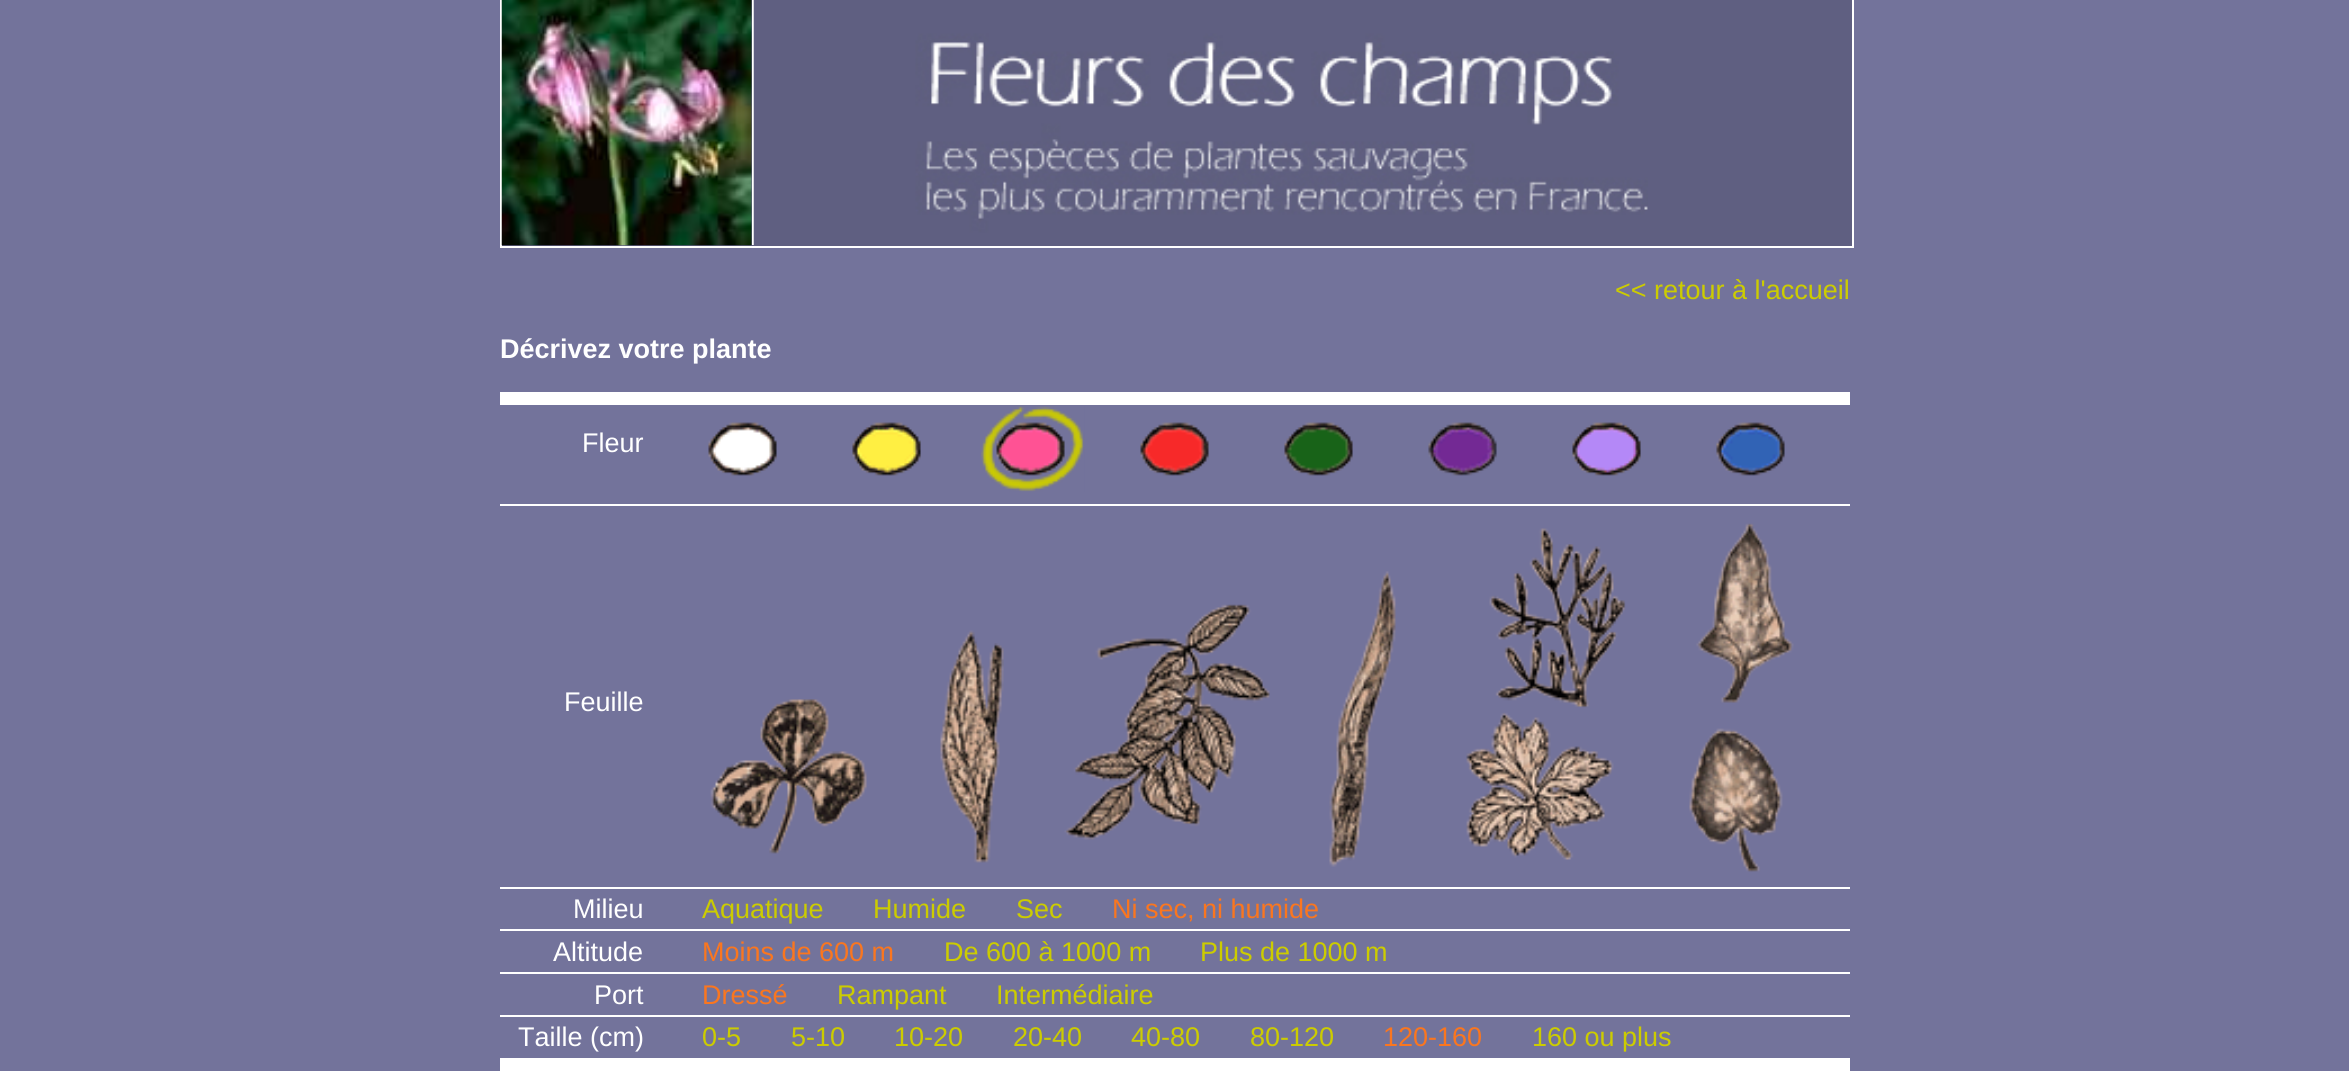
#include <cairo.h>
#include <math.h>
#include <stddef.h>

typedef struct { const char *family; double size; int italic, bold; unsigned color; } style_t;
static cairo_t *ctx;

static void ink(unsigned color) {
    cairo_set_source_rgb(ctx, (color >> 16) / 255.0, (color >> 8 & 255) / 255.0, (color & 255) / 255.0);
}

static void write(double x, double y, const char *s, const style_t *st) {
    cairo_select_font_face(ctx, st->family, st->italic ? CAIRO_FONT_SLANT_ITALIC : CAIRO_FONT_SLANT_NORMAL,
        st->bold ? CAIRO_FONT_WEIGHT_BOLD : CAIRO_FONT_WEIGHT_NORMAL);
    cairo_set_font_size(ctx, st->size);
    ink(st->color);
    cairo_move_to(ctx, x, y);
    cairo_show_text(ctx, s);
}

static void block(double x, double y, double w, double h, unsigned color) {
    ink(color);
    cairo_rectangle(ctx, x, y, w, h);
    cairo_fill(ctx);
}

static void paste(const char *path, double x, double y, double w, double h) {
    cairo_surface_t *image = cairo_image_surface_create_from_png(path);
    cairo_save(ctx);
    cairo_set_source_surface(ctx, image, x, y);
    cairo_rectangle(ctx, x, y, w, h);
    cairo_fill(ctx);
    cairo_restore(ctx);
    cairo_surface_destroy(image);
}

static const style_t s1 = {"Liberation Sans", 27, 0, 0, 0xcccc00};
static const style_t s2 = {"Liberation Sans", 27, 0, 1, 0xffffff};
static const style_t s3 = {"Liberation Sans", 27, 0, 0, 0xffffff};
static const style_t s4 = {"Liberation Sans", 27, 0, 0, 0xfa761f};

int main(void) {
    cairo_surface_t *surface = cairo_image_surface_create(CAIRO_FORMAT_RGB24, 2349, 1071);
    ctx = cairo_create(surface);
    cairo_font_options_t *options = cairo_font_options_create();
    cairo_font_options_set_hint_metrics(options, CAIRO_HINT_METRICS_OFF);
    cairo_font_options_set_hint_style(options, CAIRO_HINT_STYLE_NONE);
    cairo_set_font_options(ctx, options);
    cairo_set_miter_limit(ctx, 4);
    ink(0x73739b);
    cairo_paint(ctx);
    ink(0x5f5f81);
    cairo_rectangle(ctx, 501, -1, 1352, 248);
    cairo_fill_preserve(ctx);
    ink(0xffffff);
    cairo_stroke(ctx);
    paste("pic1.png", 501, 0, 251, 246);
    block(752, 0, 2, 245, 0xffffff);
    paste("pic2.png", 753, 0, 895, 245);
    write(1615, 299, "<< retour à l'accueil", &s1);
    write(500, 358, "Décrivez votre plante", &s2);
    block(500, 392, 1350, 13, 0xffffff);
    block(500, 1058, 1350, 13, 0xffffff);
    block(500, 504, 1350, 2, 0xffffff);
    write(582, 452, "Fleur", &s3);
    paste("pic3.png", 708, 422, 69, 54);
    paste("pic4.png", 852, 422, 69, 54);
    paste("pic5.png", 981, 406, 104, 86);
    paste("pic6.png", 1140, 422, 69, 54);
    paste("pic7.png", 1284, 422, 69, 54);
    paste("pic8.png", 1428, 422, 69, 54);
    paste("pic9.png", 1572, 422, 69, 54);
    paste("pic10.png", 1716, 422, 69, 54);
    block(500, 887, 1350, 2, 0xffffff);
    write(564, 711, "Feuille", &s3);
    paste("pic11.png", 710, 699, 157, 155);
    paste("pic12.png", 940, 630, 64, 233);
    paste("pic13.png", 1064, 604, 206, 236);
    paste("pic14.png", 1329, 571, 67, 296);
    paste("pic15.png", 1466, 528, 160, 332);
    paste("pic16.png", 1689, 523, 105, 349);
    block(500, 929, 1350, 2, 0xffffff);
    write(573, 918, "Milieu", &s3);
    write(702, 918, "Aquatique", &s1);
    write(873, 918, "Humide", &s1);
    write(1016, 918, "Sec", &s1);
    write(1112, 918, "Ni sec, ni humide", &s4);
    block(500, 972, 1350, 2, 0xffffff);
    write(553, 961, "Altitude", &s3);
    write(702, 961, "Moins de 600 m", &s4);
    write(944, 961, "De 600 à 1000 m", &s1);
    write(1200, 961, "Plus de 1000 m", &s1);
    block(500, 1015, 1350, 2, 0xffffff);
    write(594, 1004, "Port", &s3);
    write(702, 1004, "Dressé", &s4);
    write(837, 1004, "Rampant", &s1);
    write(996, 1004, "Intermédiaire", &s1);
    write(518, 1046, "Taille (cm)", &s3);
    write(702, 1046, "0-5", &s1);
    write(791, 1046, "5-10", &s1);
    write(894, 1046, "10-20", &s1);
    write(1013, 1046, "20-40", &s1);
    write(1131, 1046, "40-80", &s1);
    write(1250, 1046, "80-120", &s1);
    write(1383, 1046, "120-160", &s4);
    write(1532, 1046, "160 ou plus", &s1);
    cairo_surface_write_to_png(surface, "screenshot.png");
    cairo_font_options_destroy(options);
    cairo_destroy(ctx);
    cairo_surface_destroy(surface);
    return 0;
}
